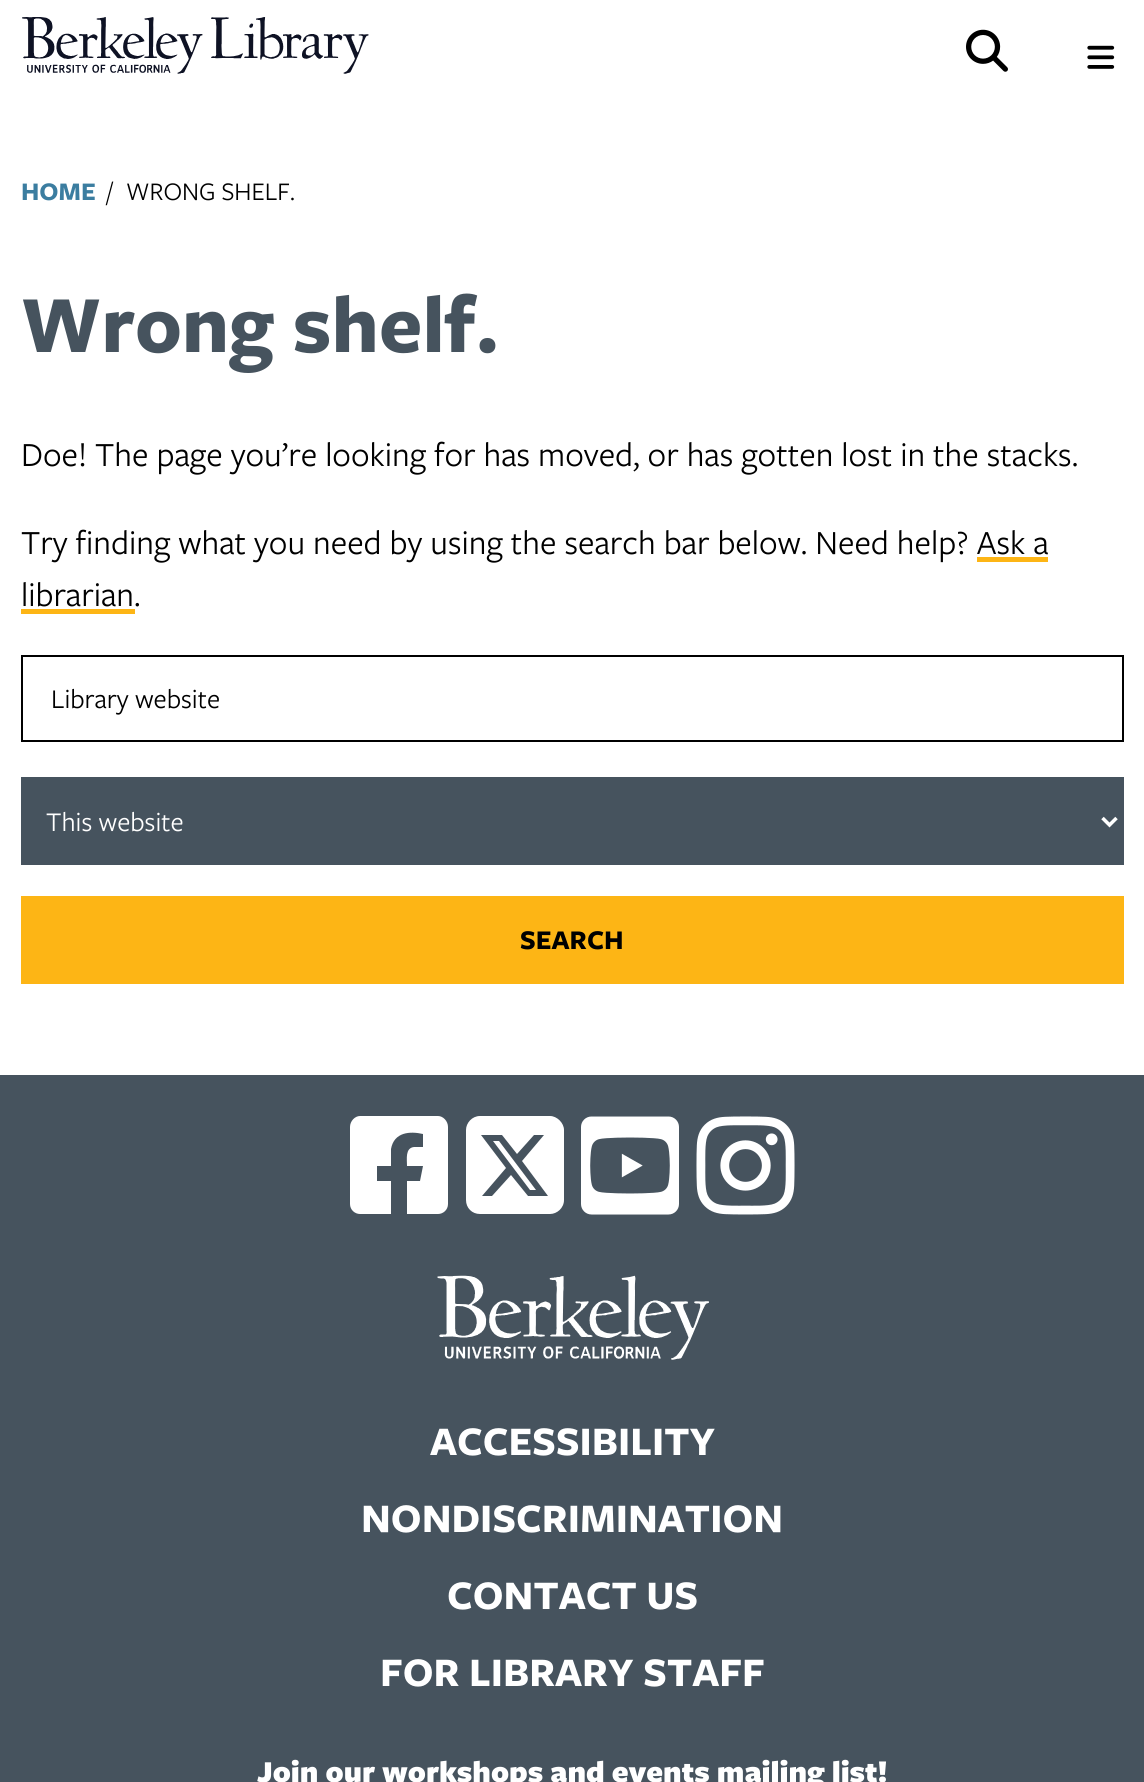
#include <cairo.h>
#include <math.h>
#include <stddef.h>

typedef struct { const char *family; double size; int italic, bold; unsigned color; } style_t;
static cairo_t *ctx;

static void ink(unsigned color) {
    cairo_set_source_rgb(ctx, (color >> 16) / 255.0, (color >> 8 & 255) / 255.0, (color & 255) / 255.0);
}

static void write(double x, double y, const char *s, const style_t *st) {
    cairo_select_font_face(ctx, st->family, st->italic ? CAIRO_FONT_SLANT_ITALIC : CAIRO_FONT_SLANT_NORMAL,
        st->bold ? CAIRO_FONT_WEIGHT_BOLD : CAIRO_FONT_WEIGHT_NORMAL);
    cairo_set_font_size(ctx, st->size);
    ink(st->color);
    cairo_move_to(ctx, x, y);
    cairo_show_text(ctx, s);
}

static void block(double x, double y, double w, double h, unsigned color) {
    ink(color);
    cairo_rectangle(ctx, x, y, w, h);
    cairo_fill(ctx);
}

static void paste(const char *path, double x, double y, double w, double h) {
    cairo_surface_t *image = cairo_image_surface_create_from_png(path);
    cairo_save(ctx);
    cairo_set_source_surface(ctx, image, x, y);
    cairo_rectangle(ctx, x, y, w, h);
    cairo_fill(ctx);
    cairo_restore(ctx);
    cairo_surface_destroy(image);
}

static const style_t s1 = {"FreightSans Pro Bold", 26.25, 0, 1, 0x3b7da0};
static const style_t s2 = {"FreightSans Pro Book", 26.25, 0, 0, 0x000000};
static const style_t s3 = {"FreightSans Pro Bold", 84, 0, 1, 0x46535e};
static const style_t s4 = {"FreightSans Pro Book", 35, 0, 0, 0x000000};
static const style_t s5 = {"FreightSans Pro Book", 28, 0, 0, 0x000000};
static const style_t s6 = {"FreightSans Pro Book", 28, 0, 0, 0xffffff};
static const style_t s7 = {"FreightSans Pro Bold", 28, 0, 1, 0x000000};
static const style_t s8 = {"FreightSans Pro Bold", 42, 0, 1, 0xffffff};
static const style_t s9 = {"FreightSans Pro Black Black", 31.5, 0, 0, 0xffffff};

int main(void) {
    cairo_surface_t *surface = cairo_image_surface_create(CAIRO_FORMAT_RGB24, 1144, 1782);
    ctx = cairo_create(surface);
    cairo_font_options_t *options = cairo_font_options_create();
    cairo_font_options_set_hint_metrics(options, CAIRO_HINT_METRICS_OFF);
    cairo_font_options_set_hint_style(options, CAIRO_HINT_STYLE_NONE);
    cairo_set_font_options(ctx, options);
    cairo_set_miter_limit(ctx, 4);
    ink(0xffffff);
    cairo_paint(ctx);
    paste("pic1.png", 22, 17, 347, 57);
    paste("pic2.png", 966, 29, 42, 43);
    paste("pic3.png", 1087, 45, 28, 24);
    write(21, 200, "HOME", &s1);
    write(107, 200, "/", &s2);
    write(126, 200, "WRONG SHELF.", &s2);
    write(21, 352, "Wrong shelf.", &s3);
    write(21, 466, "Doe! The page you’re looking for has moved, or has gotten lost in the stacks.", &s4);
    write(21, 554, "Try finding what you need by using the search bar below. Need help? Ask a", &s4);
    write(21, 606, "librarian.", &s4);
    block(977, 557, 71, 5, 0xfdb515);
    block(21, 609, 114, 5, 0xfdb515);
    cairo_rectangle(ctx, 22, 656, 1101, 85);
    ink(0x000000);
    cairo_stroke(ctx);
    write(51, 708, "Library website", &s5);
    block(21, 777, 1103, 88, 0x46535e);
    cairo_new_path(ctx);
    cairo_move_to(ctx, 1102.5, 818);
    cairo_line_to(ctx, 1109.5, 825);
    cairo_line_to(ctx, 1116.5, 818);
    ink(0xffffff);
    cairo_set_line_width(ctx, 3.5);
    cairo_stroke(ctx);
    write(46, 831, "This website", &s6);
    block(21, 896, 1103, 88, 0xfdb515);
    write(520, 949, "SEARCH", &s7);
    block(0, 1075, 1144, 707, 0x46535e);
    ink(0xffffff);
    cairo_new_path(ctx);
    cairo_move_to(ctx, 438, 1116);
    cairo_line_to(ctx, 360, 1116);
    cairo_curve_to(ctx, 355, 1116, 350, 1121, 350, 1127);
    cairo_line_to(ctx, 350, 1204);
    cairo_curve_to(ctx, 350, 1210, 355, 1214, 360, 1214);
    cairo_line_to(ctx, 391, 1214);
    cairo_line_to(ctx, 391, 1181);
    cairo_line_to(ctx, 377, 1181);
    cairo_line_to(ctx, 377, 1166);
    cairo_line_to(ctx, 391, 1166);
    cairo_line_to(ctx, 391, 1149);
    cairo_curve_to(ctx, 394, 1132, 410, 1131, 423, 1134);
    cairo_line_to(ctx, 423, 1147);
    cairo_line_to(ctx, 414, 1147);
    cairo_curve_to(ctx, 405, 1148, 407, 1159, 407, 1166);
    cairo_line_to(ctx, 423, 1166);
    cairo_line_to(ctx, 420, 1181);
    cairo_line_to(ctx, 407, 1181);
    cairo_line_to(ctx, 407, 1214);
    cairo_line_to(ctx, 438, 1214);
    cairo_curve_to(ctx, 443, 1214, 448, 1210, 448, 1204);
    cairo_line_to(ctx, 448, 1127);
    cairo_curve_to(ctx, 448, 1121, 443, 1116, 438, 1116);
    cairo_close_path(ctx);
    cairo_fill(ctx);
    cairo_new_path(ctx);
    cairo_move_to(ctx, 480, 1116);
    cairo_curve_to(ctx, 472, 1116, 466, 1123, 466, 1130);
    cairo_line_to(ctx, 466, 1200);
    cairo_curve_to(ctx, 466, 1208, 472, 1214, 480, 1214);
    cairo_line_to(ctx, 550, 1214);
    cairo_curve_to(ctx, 557, 1214, 564, 1208, 564, 1200);
    cairo_line_to(ctx, 564, 1130);
    cairo_curve_to(ctx, 564, 1123, 557, 1116, 550, 1116);
    cairo_close_path(ctx);
    cairo_move_to(ctx, 544, 1135);
    cairo_line_to(ctx, 522, 1161);
    cairo_line_to(ctx, 548, 1196);
    cairo_line_to(ctx, 528, 1196);
    cairo_line_to(ctx, 511, 1175);
    cairo_line_to(ctx, 492, 1196);
    cairo_line_to(ctx, 482, 1196);
    cairo_line_to(ctx, 506, 1168);
    cairo_line_to(ctx, 481, 1135);
    cairo_line_to(ctx, 502, 1135);
    cairo_line_to(ctx, 517, 1154);
    cairo_line_to(ctx, 534, 1135);
    cairo_close_path(ctx);
    cairo_move_to(ctx, 536, 1190);
    cairo_line_to(ctx, 499, 1141);
    cairo_line_to(ctx, 493, 1141);
    cairo_line_to(ctx, 530, 1190);
    cairo_close_path(ctx);
    cairo_fill(ctx);
    paste("pic4.png", 581, 1116, 98, 99);
    paste("pic5.png", 696, 1116, 99, 99);
    paste("pic6.png", 437, 1275, 272, 85);
    write(430, 1455, "ACCESSIBILITY", &s8);
    write(361, 1532, "NONDISCRIMINATION", &s8);
    write(447, 1609, "CONTACT US", &s8);
    write(380, 1686, "FOR LIBRARY STAFF", &s8);
    write(257, 1782, "Join our workshops and events mailing list!", &s9);
    cairo_surface_write_to_png(surface, "screenshot.png");
    cairo_font_options_destroy(options);
    cairo_destroy(ctx);
    cairo_surface_destroy(surface);
    return 0;
}
